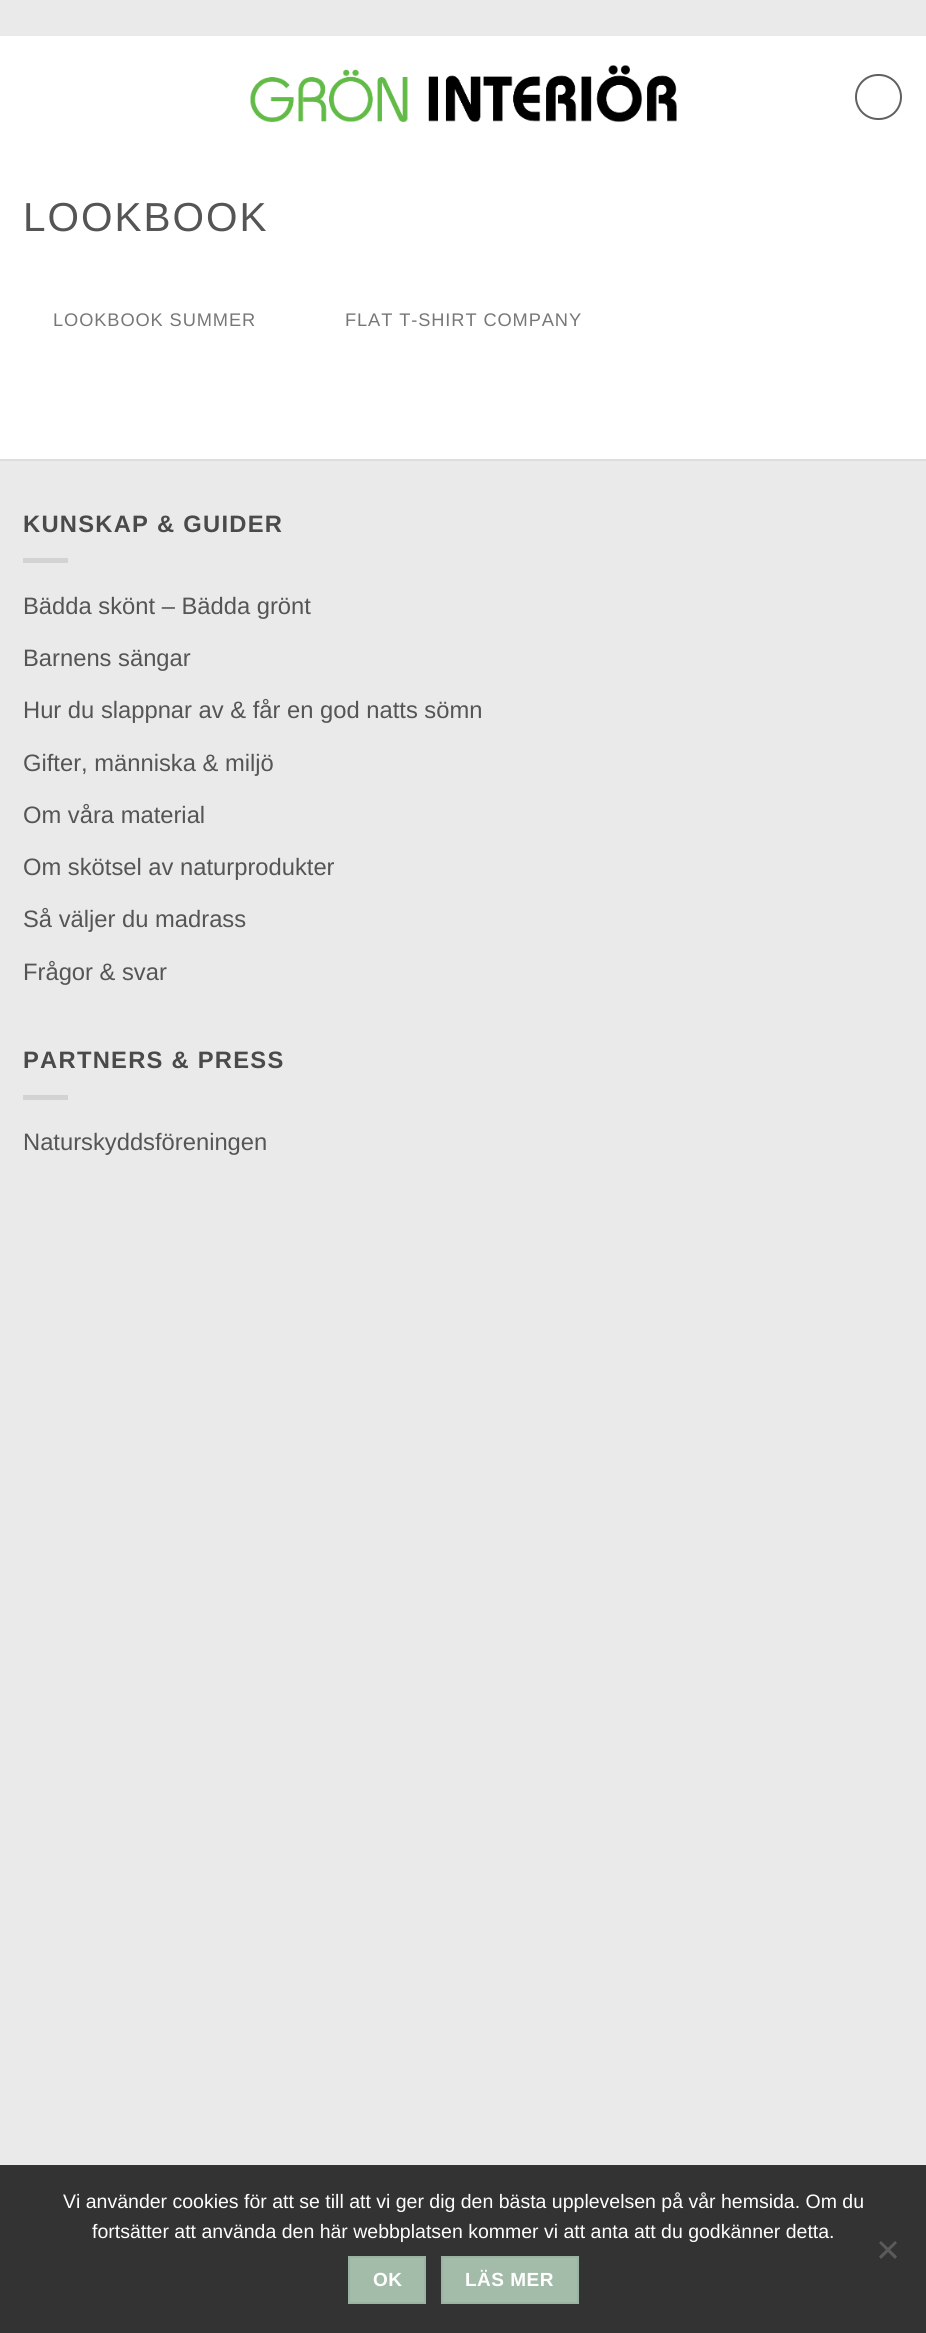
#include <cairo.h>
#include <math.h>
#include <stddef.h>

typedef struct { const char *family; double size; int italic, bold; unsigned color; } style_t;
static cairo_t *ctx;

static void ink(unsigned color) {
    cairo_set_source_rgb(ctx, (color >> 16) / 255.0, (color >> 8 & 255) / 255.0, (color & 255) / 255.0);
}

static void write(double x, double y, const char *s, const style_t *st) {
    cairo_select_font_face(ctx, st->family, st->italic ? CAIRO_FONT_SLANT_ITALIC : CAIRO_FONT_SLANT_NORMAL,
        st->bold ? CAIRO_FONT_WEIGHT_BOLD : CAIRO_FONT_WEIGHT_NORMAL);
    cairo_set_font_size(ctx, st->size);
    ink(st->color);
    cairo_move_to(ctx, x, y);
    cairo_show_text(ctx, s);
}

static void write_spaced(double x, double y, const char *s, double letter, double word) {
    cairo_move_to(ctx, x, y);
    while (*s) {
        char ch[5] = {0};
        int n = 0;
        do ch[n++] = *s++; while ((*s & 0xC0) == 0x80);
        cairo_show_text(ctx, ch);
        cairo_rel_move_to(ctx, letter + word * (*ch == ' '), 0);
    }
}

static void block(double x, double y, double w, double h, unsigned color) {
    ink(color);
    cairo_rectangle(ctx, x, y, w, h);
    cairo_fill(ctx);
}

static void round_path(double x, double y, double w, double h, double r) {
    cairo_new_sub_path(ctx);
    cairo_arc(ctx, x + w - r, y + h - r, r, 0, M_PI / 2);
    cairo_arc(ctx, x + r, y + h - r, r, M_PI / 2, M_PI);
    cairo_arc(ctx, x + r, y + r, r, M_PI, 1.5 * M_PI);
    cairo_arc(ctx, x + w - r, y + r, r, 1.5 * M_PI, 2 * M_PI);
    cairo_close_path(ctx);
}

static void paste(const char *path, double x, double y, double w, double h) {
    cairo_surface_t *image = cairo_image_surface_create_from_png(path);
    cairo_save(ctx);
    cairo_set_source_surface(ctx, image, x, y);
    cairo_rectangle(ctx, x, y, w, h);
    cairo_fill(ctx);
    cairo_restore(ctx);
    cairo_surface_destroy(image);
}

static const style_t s1 = {"Liberation Sans", 23.75, 0, 0, 0x555555};
static const style_t s2 = {"Liberation Sans", 19.5, 0, 0, 0xffffff};

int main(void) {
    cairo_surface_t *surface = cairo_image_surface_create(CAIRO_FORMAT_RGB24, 926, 2333);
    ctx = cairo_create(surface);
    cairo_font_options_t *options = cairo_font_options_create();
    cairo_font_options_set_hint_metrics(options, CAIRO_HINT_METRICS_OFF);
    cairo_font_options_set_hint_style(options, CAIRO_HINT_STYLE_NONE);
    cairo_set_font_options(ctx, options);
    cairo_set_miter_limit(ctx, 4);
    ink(0xffffff);
    cairo_paint(ctx);
    block(0, 0, 926, 36, 0xeaeaea);
    paste("pic1.png", 250, 65, 427, 58);
    round_path(856, 75, 45, 44, 22);
    ink(0x606060);
    cairo_stroke(ctx);
    cairo_select_font_face(ctx, "Liberation Sans", CAIRO_FONT_SLANT_NORMAL, CAIRO_FONT_WEIGHT_NORMAL);
    cairo_set_font_size(ctx, 40.5);
    ink(0x555555);
    write_spaced(23, 231, "LOOKBOOK", 2, 0);
    cairo_set_font_size(ctx, 18.25);
    ink(0x777777);
    write_spaced(53, 326, "LOOKBOOK SUMMER", 0.9, 0);
    write_spaced(345, 326, "FLAT T-SHIRT COMPANY", 0.9, 0);
    block(0, 461, 926, 1704, 0xeaeaea);
    block(0, 459, 926, 2, 0xdedede);
    cairo_select_font_face(ctx, "Liberation Sans", CAIRO_FONT_SLANT_NORMAL, CAIRO_FONT_WEIGHT_BOLD);
    cairo_set_font_size(ctx, 23.75);
    ink(0x4a4a4a);
    write_spaced(23, 532, "KUNSKAP & GUIDER", 1.25, 0);
    block(23, 558, 45, 5, 0xd3d3d3);
    write(23, 614, "Bädda skönt – Bädda grönt", &s1);
    write(23, 666, "Barnens sängar", &s1);
    write(23, 718, "Hur du slappnar av & får en god natts sömn", &s1);
    write(23, 771, "Gifter, människa & miljö", &s1);
    write(23, 823, "Om våra material", &s1);
    write(23, 875, "Om skötsel av naturprodukter", &s1);
    write(23, 927, "Så väljer du madrass", &s1);
    write(23, 980, "Frågor & svar", &s1);
    cairo_select_font_face(ctx, "Liberation Sans", CAIRO_FONT_SLANT_NORMAL, CAIRO_FONT_WEIGHT_BOLD);
    ink(0x4a4a4a);
    write_spaced(23, 1068, "PARTNERS & PRESS", 1.25, 0);
    block(23, 1095, 45, 5, 0xd3d3d3);
    write(23, 1150, "Naturskyddsföreningen", &s1);
    block(0, 2165, 926, 168, 0x333333);
    write(63, 2208, "Vi använder cookies för att se till att vi ger dig den bästa upplevelsen på vår hemsida. Om du", &s2);
    write(92, 2238, "fortsätter att använda den här webbplatsen kommer vi att anta att du godkänner detta.", &s2);
    ink(0x5a5a5a);
    cairo_new_path(ctx);
    cairo_move_to(ctx, 895, 2241);
    cairo_line_to(ctx, 897, 2243);
    cairo_line_to(ctx, 881, 2259);
    cairo_line_to(ctx, 879, 2256.5);
    cairo_close_path(ctx);
    cairo_fill(ctx);
    cairo_new_path(ctx);
    cairo_move_to(ctx, 879, 2243);
    cairo_line_to(ctx, 881, 2241);
    cairo_line_to(ctx, 897, 2256.5);
    cairo_line_to(ctx, 895, 2259);
    cairo_close_path(ctx);
    cairo_fill(ctx);
    ink(0xa3bcaa);
    cairo_rectangle(ctx, 349, 2257, 76, 46);
    cairo_fill_preserve(ctx);
    ink(0x9bb3a2);
    cairo_stroke(ctx);
    cairo_select_font_face(ctx, "Liberation Sans", CAIRO_FONT_SLANT_NORMAL, CAIRO_FONT_WEIGHT_BOLD);
    cairo_set_font_size(ctx, 19);
    ink(0xffffff);
    write_spaced(373, 2286, "OK", 0.5, 0);
    ink(0xa3bcaa);
    cairo_rectangle(ctx, 442, 2257, 136, 46);
    cairo_fill_preserve(ctx);
    ink(0x9bb3a2);
    cairo_stroke(ctx);
    ink(0xffffff);
    write_spaced(465, 2286, "LÄS MER", 0.5, 0);
    cairo_surface_write_to_png(surface, "screenshot.png");
    cairo_font_options_destroy(options);
    cairo_destroy(ctx);
    cairo_surface_destroy(surface);
    return 0;
}
